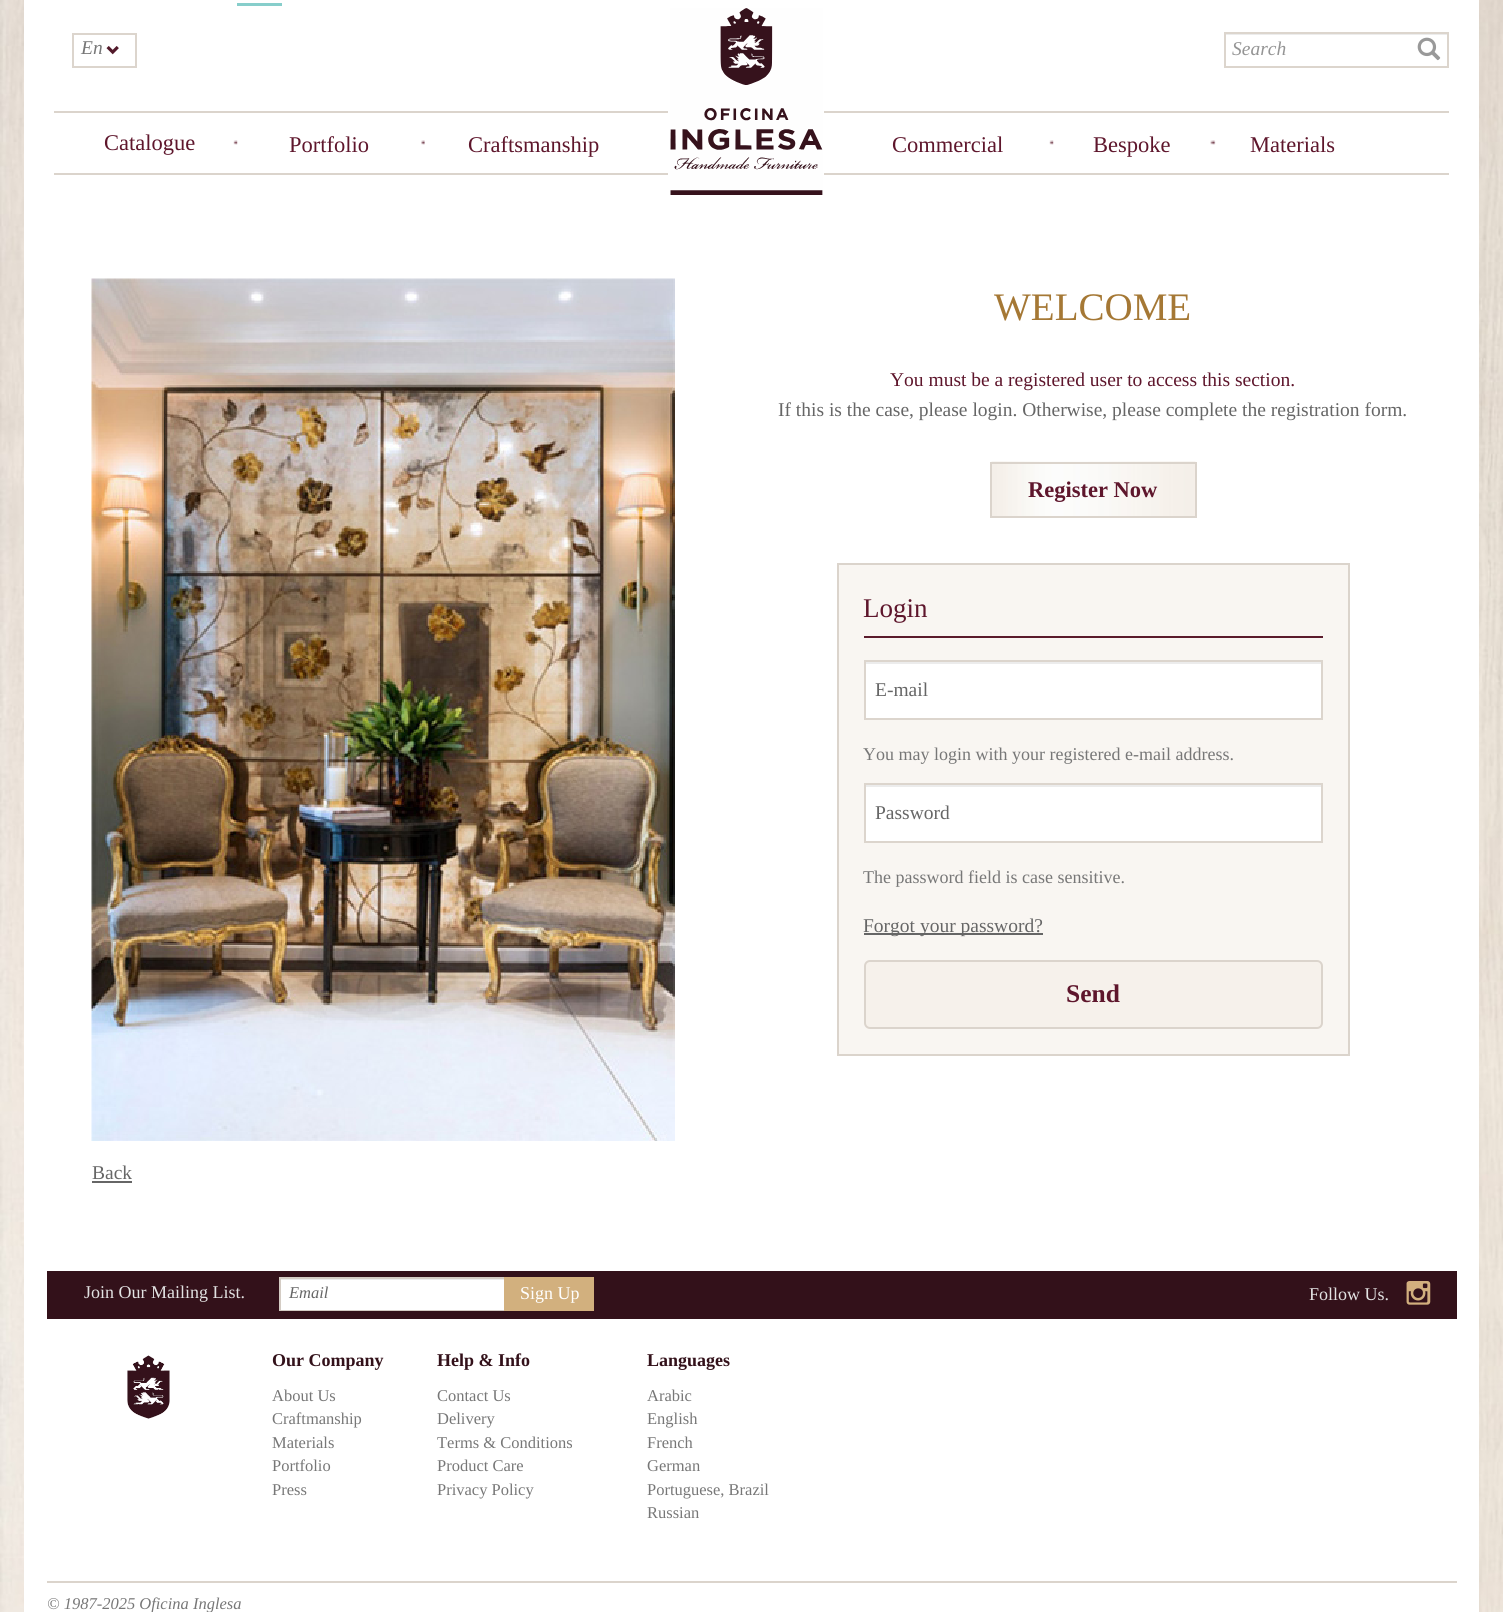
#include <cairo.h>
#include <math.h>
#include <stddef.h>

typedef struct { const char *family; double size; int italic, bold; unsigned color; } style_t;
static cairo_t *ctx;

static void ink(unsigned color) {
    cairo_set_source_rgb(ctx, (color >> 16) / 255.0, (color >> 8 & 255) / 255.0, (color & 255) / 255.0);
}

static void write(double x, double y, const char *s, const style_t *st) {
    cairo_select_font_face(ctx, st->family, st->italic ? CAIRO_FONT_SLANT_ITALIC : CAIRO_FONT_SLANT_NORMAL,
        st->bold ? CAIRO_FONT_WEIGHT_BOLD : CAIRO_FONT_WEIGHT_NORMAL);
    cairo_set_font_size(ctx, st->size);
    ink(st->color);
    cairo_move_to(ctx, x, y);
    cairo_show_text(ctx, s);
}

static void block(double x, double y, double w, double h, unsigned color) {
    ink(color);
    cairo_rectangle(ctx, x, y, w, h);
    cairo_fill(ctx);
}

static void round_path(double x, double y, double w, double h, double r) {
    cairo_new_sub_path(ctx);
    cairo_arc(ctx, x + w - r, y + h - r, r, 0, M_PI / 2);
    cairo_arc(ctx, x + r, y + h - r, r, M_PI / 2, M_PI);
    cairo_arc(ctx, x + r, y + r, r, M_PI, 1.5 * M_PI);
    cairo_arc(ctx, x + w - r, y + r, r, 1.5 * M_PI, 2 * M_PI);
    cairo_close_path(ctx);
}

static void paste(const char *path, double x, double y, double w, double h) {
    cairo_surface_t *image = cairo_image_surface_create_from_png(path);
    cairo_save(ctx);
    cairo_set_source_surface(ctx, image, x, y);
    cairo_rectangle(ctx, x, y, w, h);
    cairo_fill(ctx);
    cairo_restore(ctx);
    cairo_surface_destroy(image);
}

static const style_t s1 = {"Liberation Serif", 19.5, 1, 0, 0x777777};
static const style_t s2 = {"Liberation Serif", 19.5, 1, 0, 0x949494};
static const style_t s3 = {"Liberation Serif", 22.5, 0, 0, 0x5e162c};
static const style_t s4 = {"Liberation Serif", 39, 0, 0, 0xa57835};
static const style_t s5 = {"Liberation Serif", 19.5, 0, 0, 0x5e162c};
static const style_t s6 = {"Liberation Serif", 19.5, 0, 0, 0x666666};
static const style_t s7 = {"Liberation Serif", 22.5, 0, 1, 0x5e162c};
static const style_t s8 = {"Liberation Serif", 27, 0, 0, 0x5e162c};
static const style_t s9 = {"Liberation Serif", 18, 0, 0, 0x777777};
static const style_t s10 = {"Liberation Serif", 25.5, 0, 1, 0x5e162c};
static const style_t s11 = {"Liberation Serif", 18, 0, 0, 0xe2e2e2};
static const style_t s12 = {"Liberation Serif", 16.5, 1, 0, 0x666666};
static const style_t s13 = {"Liberation Serif", 18, 0, 0, 0xffffff};
static const style_t s14 = {"Liberation Serif", 18, 0, 1, 0x33111a};
static const style_t s15 = {"Liberation Serif", 16.5, 0, 0, 0x777777};
static const style_t s16 = {"Liberation Serif", 16.5, 1, 0, 0x777777};

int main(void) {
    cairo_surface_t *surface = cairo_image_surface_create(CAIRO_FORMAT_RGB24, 1503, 1612);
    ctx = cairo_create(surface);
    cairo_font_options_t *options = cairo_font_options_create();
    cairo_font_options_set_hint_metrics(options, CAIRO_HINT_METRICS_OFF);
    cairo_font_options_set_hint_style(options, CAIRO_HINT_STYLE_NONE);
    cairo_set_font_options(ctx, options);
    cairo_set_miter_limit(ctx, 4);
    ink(0xffffff);
    cairo_paint(ctx);
    paste("pic1.png", 0, 0, 1503, 1612);
    block(24, 0, 1455, 1612, 0xffffff);
    block(237, 3, 45, 3, 0x87cecb);
    cairo_rectangle(ctx, 73, 34, 63, 33);
    ink(0xdcd5cd);
    cairo_stroke(ctx);
    write(81, 54, "En", &s1);
    paste("pic2.png", 106, 46, 13, 9);
    block(1226, 34, 222, 1, 0xececec);
    cairo_rectangle(ctx, 1225, 33, 223, 34);
    ink(0xdcd5cd);
    cairo_stroke(ctx);
    write(1232, 55, "Search", &s2);
    paste("pic3.png", 1417, 37, 24, 24);
    block(54, 111, 1395, 2, 0xdbd4cc);
    block(54, 173, 1395, 2, 0xdbd4cc);
    write(104, 150, "Catalogue", &s3);
    paste("pic4.png", 233, 140, 5, 5);
    write(289, 152, "Portfolio", &s3);
    paste("pic5.png", 421, 140, 4, 5);
    write(468, 152, "Craftsmanship", &s3);
    block(668, 111, 156, 64, 0xffffff);
    paste("pic6.png", 670, 8, 153, 187);
    write(892, 152, "Commercial", &s3);
    paste("pic7.png", 1049, 140, 5, 5);
    write(1093, 152, "Bespoke", &s3);
    paste("pic8.png", 1210, 140, 6, 5);
    write(1250, 152, "Materials", &s3);
    paste("pic9.png", 91, 278, 584, 863);
    write(994, 320, "WELCOME", &s4);
    write(890, 386, "You must be a registered user to access this section.", &s5);
    write(778, 416, "If this is the case, please login. Otherwise, please complete the registration form.", &s6);
    paste("pic10.png", 991, 461, 205, 55);
    cairo_rectangle(ctx, 991, 463, 205, 54);
    ink(0xdbd4cc);
    cairo_stroke(ctx);
    write(1028, 497, "Register Now", &s7);
    ink(0xf9f6f2);
    cairo_rectangle(ctx, 838, 564, 511, 491);
    cairo_fill_preserve(ctx);
    ink(0xdbd4cc);
    cairo_stroke(ctx);
    block(864, 636, 459, 2, 0x5b1b2c);
    write(863, 617, "Login", &s8);
    block(866, 664, 455, 54, 0xffffff);
    block(866, 662, 456, 2, 0xececec);
    cairo_rectangle(ctx, 865, 661, 457, 58);
    ink(0xdcd5cd);
    cairo_stroke(ctx);
    write(875, 696, "E-mail", &s6);
    write(863, 760, "You may login with your registered e-mail address.", &s9);
    block(866, 787, 455, 54, 0xffffff);
    block(866, 785, 456, 2, 0xececec);
    cairo_rectangle(ctx, 865, 784, 457, 58);
    ink(0xdcd5cd);
    cairo_stroke(ctx);
    write(875, 819, "Password", &s6);
    write(863, 883, "The password field is case sensitive.", &s9);
    block(864, 933, 179, 2, 0x666666);
    write(863, 932, "Forgot your password?", &s6);
    ink(0xf6f1eb);
    round_path(865, 961, 457, 67, 5);
    cairo_fill_preserve(ctx);
    ink(0xdbd4cc);
    cairo_stroke(ctx);
    write(1066, 1002, "Send", &s10);
    write(92, 1179, "Back", &s6);
    block(92, 1181, 40, 2, 0x666666);
    block(47, 1271, 1410, 48, 0x33111a);
    write(84, 1298, "Join Our Mailing List.", &s11);
    block(281, 1280, 223, 30, 0xffffff);
    block(281, 1279, 223, 1, 0xececec);
    block(279, 1277, 225, 2, 0xd4ccc4);
    block(279, 1310, 225, 1, 0xd4ccc4);
    block(279, 1277, 2, 34, 0xd4ccc4);
    write(289, 1298, "Email", &s12);
    block(504, 1277, 90, 34, 0xd2b07e);
    write(520, 1299, "Sign Up", &s13);
    write(1309, 1300, "Follow Us.", &s11);
    paste("pic11.png", 1406, 1281, 25, 24);
    paste("pic12.png", 127, 1355, 43, 64);
    write(272, 1366, "Our Company", &s14);
    write(272, 1401, "About Us", &s15);
    write(272, 1424, "Craftmanship", &s15);
    write(272, 1448, "Materials", &s15);
    write(272, 1471, "Portfolio", &s15);
    write(272, 1495, "Press", &s15);
    write(437, 1366, "Help & Info", &s14);
    write(437, 1401, "Contact Us", &s15);
    write(437, 1424, "Delivery", &s15);
    write(437, 1448, "Terms & Conditions", &s15);
    write(437, 1471, "Product Care", &s15);
    write(437, 1495, "Privacy Policy", &s15);
    write(647, 1366, "Languages", &s14);
    write(647, 1401, "Arabic", &s15);
    write(647, 1424, "English", &s15);
    write(647, 1448, "French", &s15);
    write(647, 1471, "German", &s15);
    write(647, 1495, "Portuguese, Brazil", &s15);
    write(647, 1518, "Russian", &s15);
    block(47, 1581, 1410, 2, 0xdbd4cc);
    write(47, 1609, "© 1987-2025 Oficina Inglesa", &s16);
    cairo_surface_write_to_png(surface, "screenshot.png");
    cairo_font_options_destroy(options);
    cairo_destroy(ctx);
    cairo_surface_destroy(surface);
    return 0;
}
